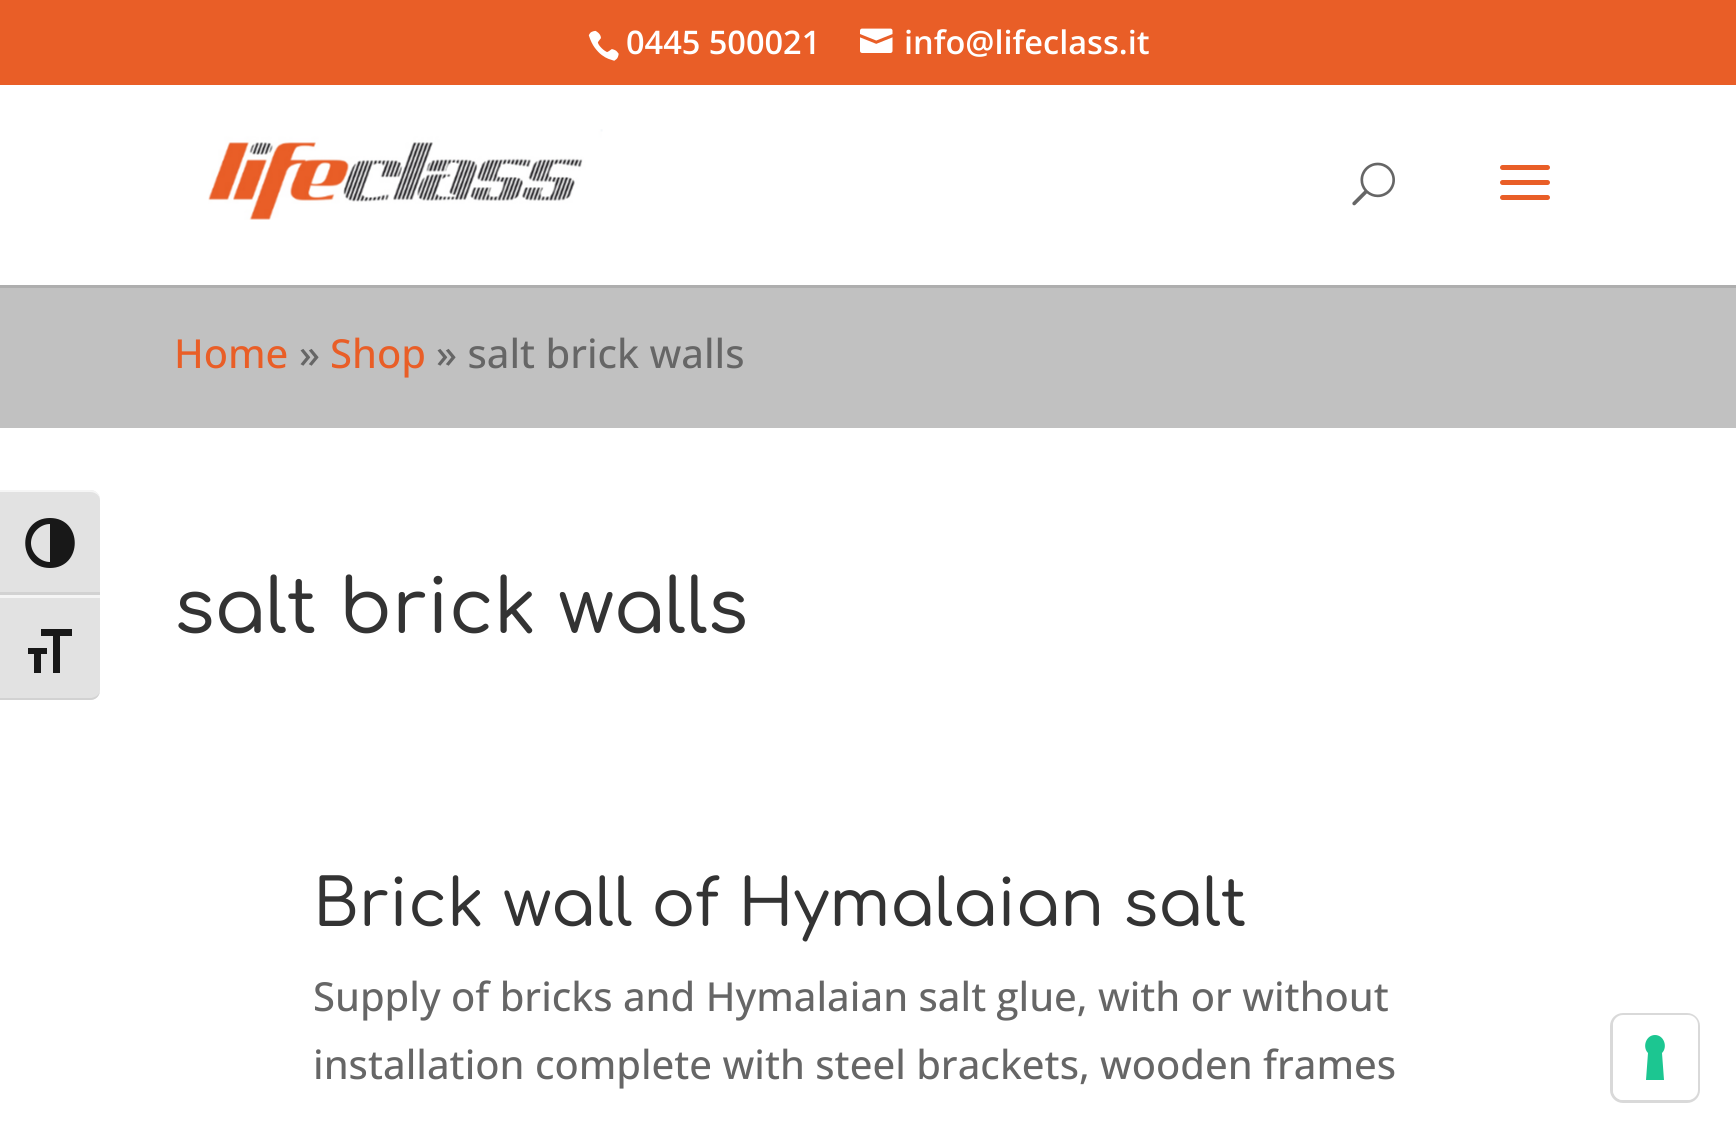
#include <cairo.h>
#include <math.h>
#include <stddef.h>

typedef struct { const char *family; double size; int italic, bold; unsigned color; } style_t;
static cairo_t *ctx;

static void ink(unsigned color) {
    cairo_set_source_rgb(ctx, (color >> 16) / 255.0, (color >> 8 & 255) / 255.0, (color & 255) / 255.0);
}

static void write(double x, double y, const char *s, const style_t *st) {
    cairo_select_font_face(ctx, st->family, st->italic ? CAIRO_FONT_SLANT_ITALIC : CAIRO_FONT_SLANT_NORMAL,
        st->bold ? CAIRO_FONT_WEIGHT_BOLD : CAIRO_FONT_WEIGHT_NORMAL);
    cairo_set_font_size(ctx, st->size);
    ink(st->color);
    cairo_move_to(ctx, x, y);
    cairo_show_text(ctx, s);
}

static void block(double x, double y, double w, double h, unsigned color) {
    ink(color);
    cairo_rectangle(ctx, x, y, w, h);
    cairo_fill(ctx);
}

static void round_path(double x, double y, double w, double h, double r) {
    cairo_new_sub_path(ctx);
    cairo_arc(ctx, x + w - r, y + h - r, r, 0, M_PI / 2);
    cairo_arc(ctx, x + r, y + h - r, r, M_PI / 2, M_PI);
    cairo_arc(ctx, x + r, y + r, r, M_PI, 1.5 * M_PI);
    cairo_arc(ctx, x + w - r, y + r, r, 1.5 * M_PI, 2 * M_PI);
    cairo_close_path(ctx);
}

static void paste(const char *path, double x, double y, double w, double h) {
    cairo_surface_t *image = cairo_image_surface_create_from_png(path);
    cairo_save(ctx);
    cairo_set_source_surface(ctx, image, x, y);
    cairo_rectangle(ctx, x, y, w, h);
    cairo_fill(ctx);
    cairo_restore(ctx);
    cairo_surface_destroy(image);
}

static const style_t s1 = {"Open Sans SemiBold", 32.5, 0, 0, 0xffffff};
static const style_t s2 = {"Open Sans Medium", 40, 0, 0, 0xe95e27};
static const style_t s3 = {"Open Sans Medium", 40, 0, 0, 0x666666};
static const style_t s4 = {"Comfortaa Medium", 75, 0, 0, 0x333333};
static const style_t s5 = {"Comfortaa Medium", 65, 0, 0, 0x333333};

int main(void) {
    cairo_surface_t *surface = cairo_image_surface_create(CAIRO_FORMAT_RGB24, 1736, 1138);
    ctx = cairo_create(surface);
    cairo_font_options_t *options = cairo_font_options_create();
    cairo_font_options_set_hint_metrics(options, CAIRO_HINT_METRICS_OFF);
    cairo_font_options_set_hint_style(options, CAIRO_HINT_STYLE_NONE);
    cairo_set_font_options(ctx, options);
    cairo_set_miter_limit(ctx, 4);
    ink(0xc1c1c1);
    cairo_paint(ctx);
    block(0, 428, 1736, 710, 0xffffff);
    ink(0xe2e2e2);
    cairo_new_path(ctx);
    cairo_move_to(ctx, 0, 490);
    cairo_line_to(ctx, 90, 490);
    cairo_curve_to(ctx, 95.5, 490, 100, 494.5, 100, 500);
    cairo_line_to(ctx, 100, 595);
    cairo_line_to(ctx, 0, 595);
    cairo_close_path(ctx);
    cairo_fill(ctx);
    ink(0xf5f5f5);
    cairo_new_path(ctx);
    cairo_move_to(ctx, 0, 490);
    cairo_line_to(ctx, 0, 492);
    cairo_line_to(ctx, 90, 492);
    cairo_curve_to(ctx, 96, 492, 100, 496, 100, 500);
    cairo_curve_to(ctx, 100, 494, 96, 490, 90, 490);
    cairo_close_path(ctx);
    cairo_fill(ctx);
    block(0, 592, 100, 3, 0xd2d2d2);
    ink(0x181818);
    cairo_new_path(ctx);
    cairo_move_to(ctx, 50, 518);
    cairo_curve_to(ctx, 17, 518, 17, 568, 50, 568);
    cairo_curve_to(ctx, 83, 568, 83, 518, 50, 518);
    cairo_close_path(ctx);
    cairo_move_to(ctx, 31, 543);
    cairo_curve_to(ctx, 31, 533, 40, 524, 50, 524);
    cairo_line_to(ctx, 50, 562);
    cairo_curve_to(ctx, 40, 562, 31, 553, 31, 543);
    cairo_close_path(ctx);
    cairo_fill(ctx);
    ink(0xe2e2e2);
    cairo_new_path(ctx);
    cairo_move_to(ctx, 0, 595);
    cairo_line_to(ctx, 100, 595);
    cairo_line_to(ctx, 100, 690);
    cairo_curve_to(ctx, 100, 695.5, 95.5, 700, 90, 700);
    cairo_line_to(ctx, 0, 700);
    cairo_close_path(ctx);
    cairo_fill(ctx);
    block(0, 595, 100, 3, 0xf5f5f5);
    ink(0xd2d2d2);
    cairo_new_path(ctx);
    cairo_move_to(ctx, 0, 698);
    cairo_line_to(ctx, 0, 700);
    cairo_line_to(ctx, 90, 700);
    cairo_curve_to(ctx, 96, 700, 100, 696, 100, 690);
    cairo_curve_to(ctx, 100, 694, 96, 698, 90, 698);
    cairo_close_path(ctx);
    cairo_fill(ctx);
    ink(0x181818);
    cairo_new_path(ctx);
    cairo_move_to(ctx, 28, 648);
    cairo_line_to(ctx, 47, 648);
    cairo_line_to(ctx, 47, 654);
    cairo_line_to(ctx, 41, 654);
    cairo_line_to(ctx, 41, 673);
    cairo_line_to(ctx, 34, 673);
    cairo_line_to(ctx, 34, 654);
    cairo_line_to(ctx, 28, 654);
    cairo_close_path(ctx);
    cairo_move_to(ctx, 72, 636);
    cairo_line_to(ctx, 60, 636);
    cairo_line_to(ctx, 60, 673);
    cairo_line_to(ctx, 53, 673);
    cairo_line_to(ctx, 53, 636);
    cairo_line_to(ctx, 41, 636);
    cairo_line_to(ctx, 41, 629);
    cairo_line_to(ctx, 72, 629);
    cairo_close_path(ctx);
    cairo_fill(ctx);
    block(0, 0, 1736, 85, 0xe95e27);
    paste("pic1.png", 588, 30, 31, 31);
    write(626, 54, "0445 500021", &s1);
    paste("pic2.png", 860, 28, 33, 25);
    write(904, 54, "info@lifeclass.it", &s1);
    ink(0xaeaeae);
    cairo_new_path(ctx);
    cairo_move_to(ctx, 0, 285);
    cairo_line_to(ctx, 0, 288);
    cairo_line_to(ctx, 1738, 288);
    cairo_line_to(ctx, 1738, 88);
    cairo_line_to(ctx, 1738, 285);
    cairo_close_path(ctx);
    cairo_fill(ctx);
    block(0, 85, 1736, 200, 0xffffff);
    paste("pic3.png", 208, 129, 395, 91);
    paste("pic4.png", 1352, 162, 43, 44);
    paste("pic5.png", 1500, 165, 50, 35);
    write(174, 368, "Home", &s2);
    write(299, 368, "»", &s3);
    write(330, 368, "Shop", &s2);
    write(436, 368, "» salt brick walls", &s3);
    write(174, 633, "salt brick walls", &s4);
    write(313, 926, "Brick wall of Hymalaian salt", &s5);
    write(313, 1011, "Supply of bricks and Hymalaian salt glue, with or without", &s3);
    write(313, 1079, "installation complete with steel brackets, wooden frames", &s3);
    round_path(1611.5, 1014.5, 87, 87, 11.5);
    ink(0xd9d9d9);
    cairo_set_line_width(ctx, 3);
    cairo_stroke(ctx);
    ink(0xffffff);
    round_path(1613, 1015, 85, 85, 10);
    cairo_fill(ctx);
    ink(0x1cc691);
    cairo_set_fill_rule(ctx, CAIRO_FILL_RULE_EVEN_ODD);
    cairo_new_path(ctx);
    cairo_move_to(ctx, 1655, 1035);
    cairo_curve_to(ctx, 1664, 1035, 1668, 1047, 1662, 1053);
    cairo_line_to(ctx, 1664, 1080);
    cairo_line_to(ctx, 1646, 1080);
    cairo_line_to(ctx, 1648, 1053);
    cairo_curve_to(ctx, 1642, 1047, 1646, 1035, 1655, 1035);
    cairo_close_path(ctx);
    cairo_fill(ctx);
    cairo_surface_write_to_png(surface, "screenshot.png");
    cairo_font_options_destroy(options);
    cairo_destroy(ctx);
    cairo_surface_destroy(surface);
    return 0;
}
